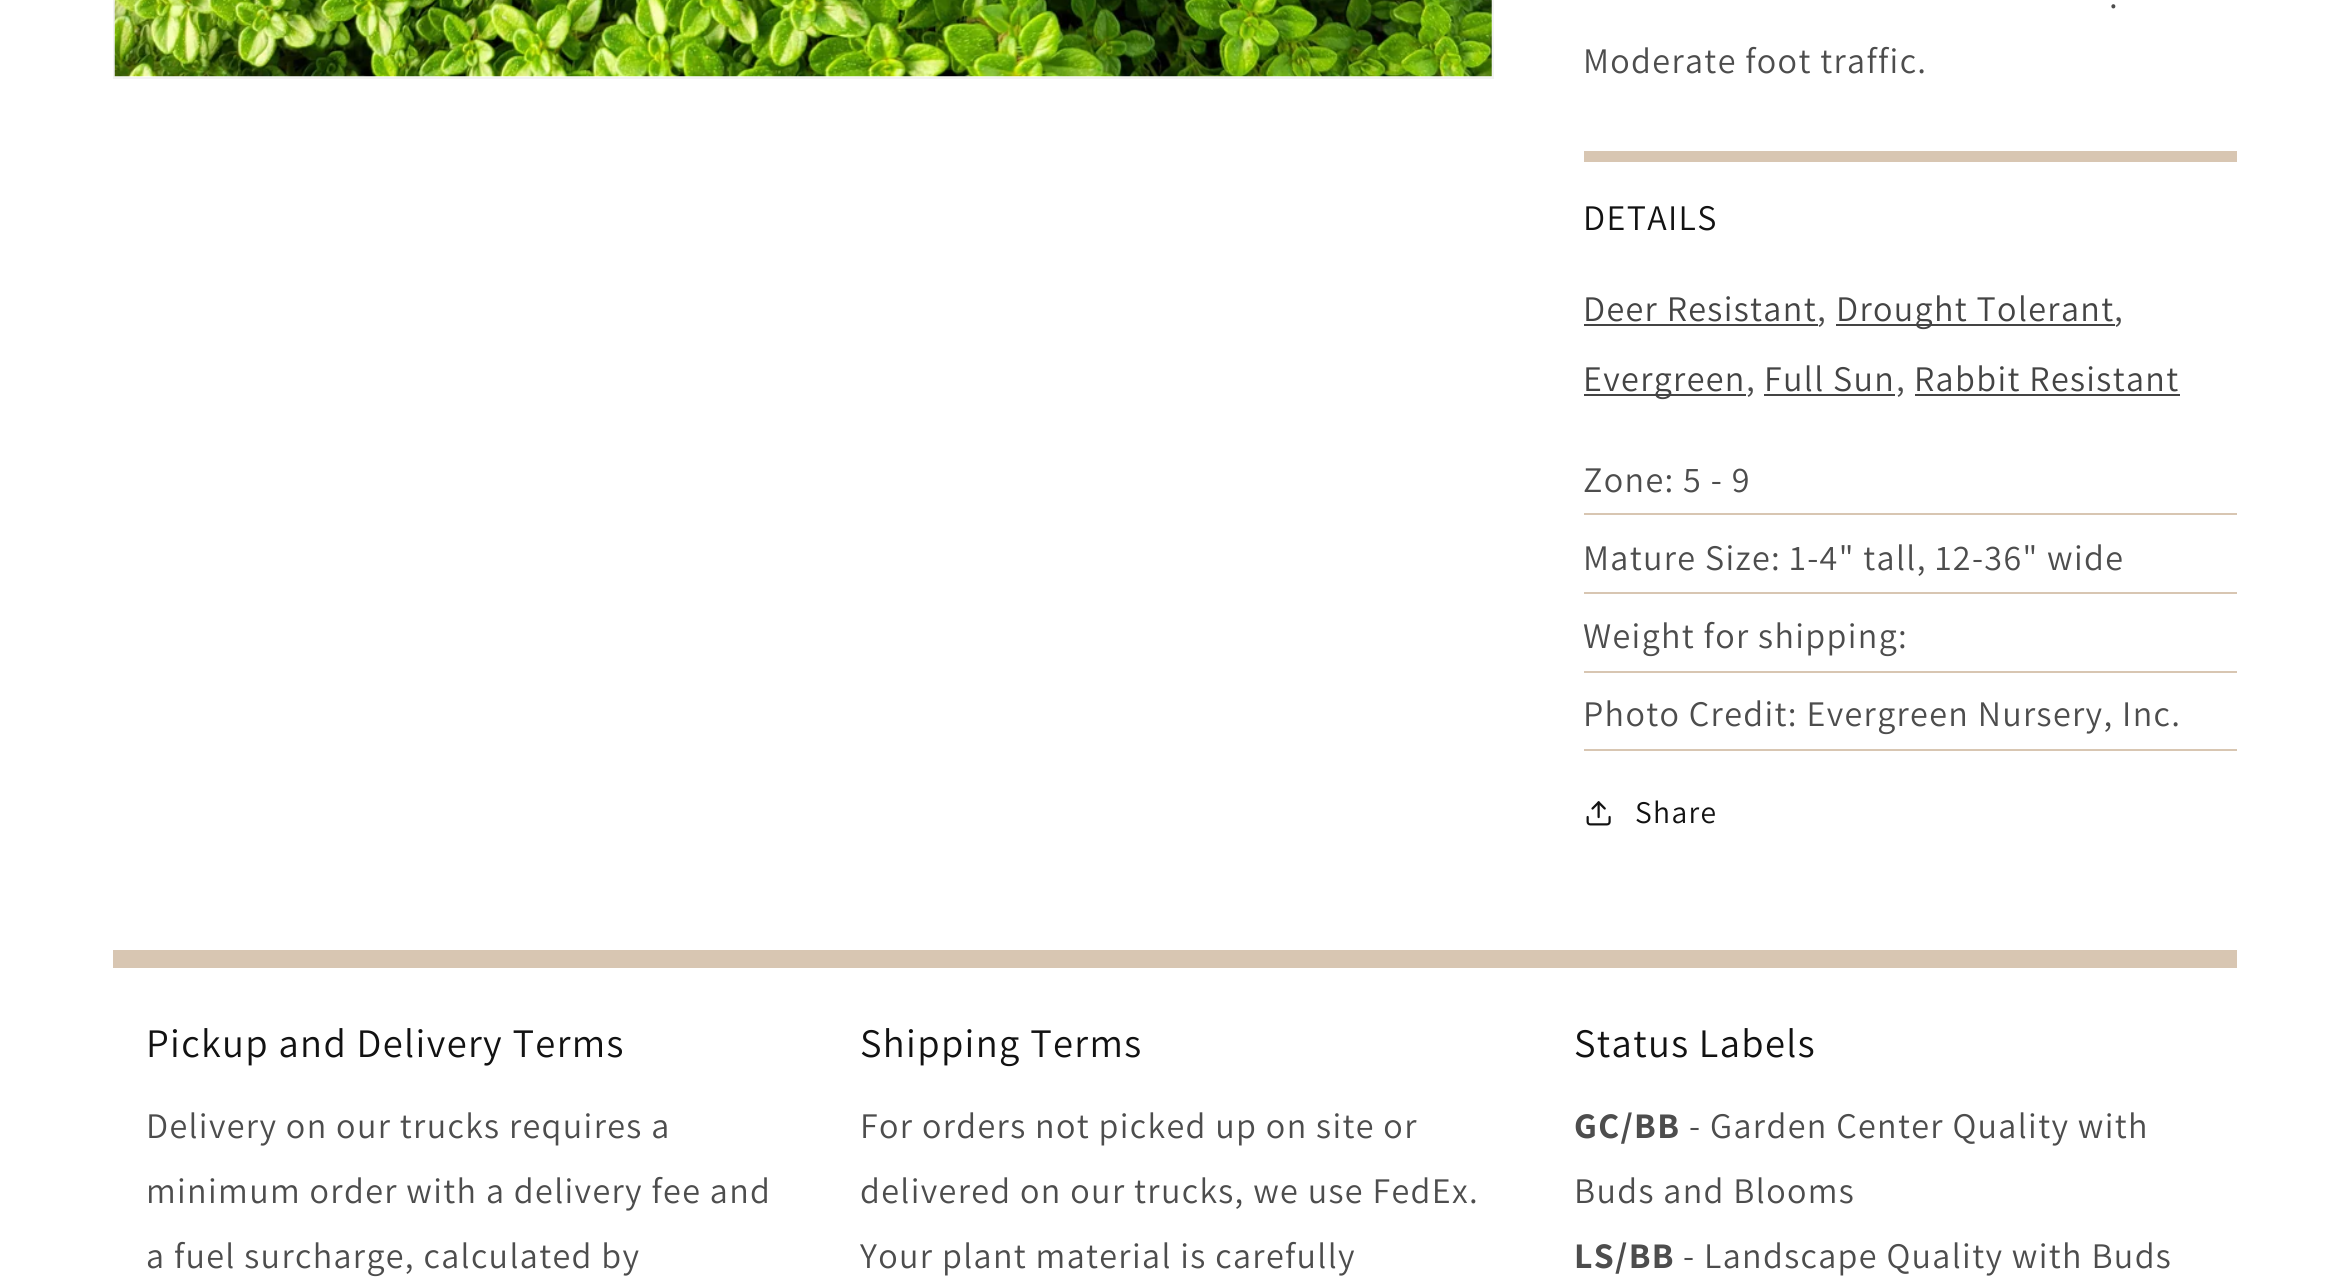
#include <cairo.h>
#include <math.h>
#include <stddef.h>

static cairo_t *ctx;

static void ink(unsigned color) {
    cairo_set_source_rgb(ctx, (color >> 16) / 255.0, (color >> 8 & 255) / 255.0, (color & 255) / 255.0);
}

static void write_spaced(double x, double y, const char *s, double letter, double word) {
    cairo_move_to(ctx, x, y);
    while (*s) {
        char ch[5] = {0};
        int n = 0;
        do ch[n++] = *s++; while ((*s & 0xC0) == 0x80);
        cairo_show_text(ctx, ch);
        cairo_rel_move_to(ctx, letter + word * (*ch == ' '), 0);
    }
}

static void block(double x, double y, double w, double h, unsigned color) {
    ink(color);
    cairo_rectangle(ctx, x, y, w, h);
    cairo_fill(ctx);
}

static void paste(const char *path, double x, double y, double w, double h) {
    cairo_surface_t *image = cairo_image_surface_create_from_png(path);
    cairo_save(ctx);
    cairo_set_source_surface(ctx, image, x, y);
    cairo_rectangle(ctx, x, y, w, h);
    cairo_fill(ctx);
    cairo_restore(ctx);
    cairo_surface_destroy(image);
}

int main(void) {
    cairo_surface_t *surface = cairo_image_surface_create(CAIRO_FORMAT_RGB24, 2347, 1281);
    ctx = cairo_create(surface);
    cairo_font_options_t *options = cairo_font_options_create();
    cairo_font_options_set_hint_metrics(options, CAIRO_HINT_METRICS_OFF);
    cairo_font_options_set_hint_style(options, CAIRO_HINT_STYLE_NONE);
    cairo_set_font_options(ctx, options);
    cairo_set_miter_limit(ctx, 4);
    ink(0xffffff);
    cairo_paint(ctx);
    cairo_rectangle(ctx, 114, -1, 1379, 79);
    ink(0xf3f3f3);
    cairo_stroke(ctx);
    paste("pic1.png", 114, 0, 1378, 77);
    cairo_select_font_face(ctx, "Assistant", CAIRO_FONT_SLANT_NORMAL, CAIRO_FONT_WEIGHT_NORMAL);
    cairo_set_font_size(ctx, 36);
    ink(0x4d4d4d);
    write_spaced(2109, 8, ".", 1.35, 0);
    write_spaced(1583, 73, "Moderate foot traffic.", 1.35, 0);
    block(1584, 151, 653, 11, 0xd8c6b2);
    ink(0x121212);
    write_spaced(1583, 230, "DETAILS", 1.35, 0);
    ink(0x444444);
    write_spaced(1583, 321, "Deer Resistant", 1.35, 0);
    block(1584, 324, 234, 2, 0x444444);
    ink(0x4d4d4d);
    write_spaced(1817, 321, ",", 1.35, 0);
    block(1836, 324, 279, 2, 0x444444);
    write_spaced(1836, 321, "Drought Tolerant", 1.35, 0);
    ink(0x4d4d4d);
    write_spaced(2114, 321, ",", 1.35, 0);
    block(1584, 394, 162, 2, 0x444444);
    write_spaced(1583, 391, "Evergreen", 1.35, 0);
    ink(0x4d4d4d);
    write_spaced(1746, 391, ",", 1.35, 0);
    ink(0x444444);
    write_spaced(1764, 391, "Full Sun", 1.35, 0);
    block(1764, 394, 131, 2, 0x444444);
    ink(0x4d4d4d);
    write_spaced(1896, 391, ",", 1.35, 0);
    ink(0x444444);
    write_spaced(1914, 391, "Rabbit Resistant", 1.35, 0);
    block(1915, 394, 265, 2, 0x444444);
    block(1584, 513, 653, 2, 0xd8c6b2);
    ink(0x4d4d4d);
    write_spaced(1583, 492, "Zone: 5 - 9", 1.35, 0);
    block(1584, 592, 653, 2, 0xd8c6b2);
    ink(0x4d4d4d);
    write_spaced(1583, 570, "Mature Size: 1-4\" tall, 12-36\" wide", 1.35, 0);
    block(1584, 671, 653, 2, 0xd8c6b2);
    ink(0x4d4d4d);
    write_spaced(1583, 648, "Weight for shipping:", 1.35, 0);
    block(1584, 749, 653, 2, 0xd8c6b2);
    ink(0x4d4d4d);
    write_spaced(1583, 726, "Photo Credit: Evergreen Nursery, Inc.", 1.35, 0);
    paste("pic2.png", 1586, 801, 25, 25);
    cairo_set_font_size(ctx, 31.5);
    ink(0x121212);
    write_spaced(1635, 823, "Share", 1.35, 0);
    block(113, 950, 2124, 18, 0xd8c6b2);
    cairo_set_font_size(ctx, 40.5);
    ink(0x121212);
    write_spaced(146, 1057, "Pickup and Delivery Terms", 1.35, 0);
    cairo_set_font_size(ctx, 36);
    ink(0x4d4d4d);
    write_spaced(146, 1138, "Delivery on our trucks requires a", 1.35, 0);
    write_spaced(146, 1203, "minimum order with a delivery fee and", 1.35, 0);
    write_spaced(146, 1268, "a fuel surcharge, calculated by", 1.35, 0);
    cairo_set_font_size(ctx, 40.5);
    ink(0x121212);
    write_spaced(860, 1057, "Shipping Terms", 1.35, 0);
    cairo_set_font_size(ctx, 36);
    ink(0x4d4d4d);
    write_spaced(860, 1138, "For orders not picked up on site or", 1.35, 0);
    write_spaced(860, 1203, "delivered on our trucks, we use FedEx.", 1.35, 0);
    write_spaced(860, 1268, "Your plant material is carefully", 1.35, 0);
    cairo_set_font_size(ctx, 40.5);
    ink(0x121212);
    write_spaced(1574, 1057, "Status Labels", 1.35, 0);
    cairo_select_font_face(ctx, "Assistant", CAIRO_FONT_SLANT_NORMAL, CAIRO_FONT_WEIGHT_BOLD);
    cairo_set_font_size(ctx, 36);
    ink(0x4d4d4d);
    write_spaced(1574, 1138, "GC/BB", 1.35, 0);
    cairo_select_font_face(ctx, "Assistant", CAIRO_FONT_SLANT_NORMAL, CAIRO_FONT_WEIGHT_NORMAL);
    write_spaced(1689, 1138, "- Garden Center Quality with", 1.35, 0);
    write_spaced(1574, 1203, "Buds and Blooms", 1.35, 0);
    cairo_select_font_face(ctx, "Assistant", CAIRO_FONT_SLANT_NORMAL, CAIRO_FONT_WEIGHT_BOLD);
    write_spaced(1574, 1268, "LS/BB", 1.35, 0);
    cairo_select_font_face(ctx, "Assistant", CAIRO_FONT_SLANT_NORMAL, CAIRO_FONT_WEIGHT_NORMAL);
    write_spaced(1683, 1268, "- Landscape Quality with Buds", 1.35, 0);
    cairo_surface_write_to_png(surface, "screenshot.png");
    cairo_font_options_destroy(options);
    cairo_destroy(ctx);
    cairo_surface_destroy(surface);
    return 0;
}
